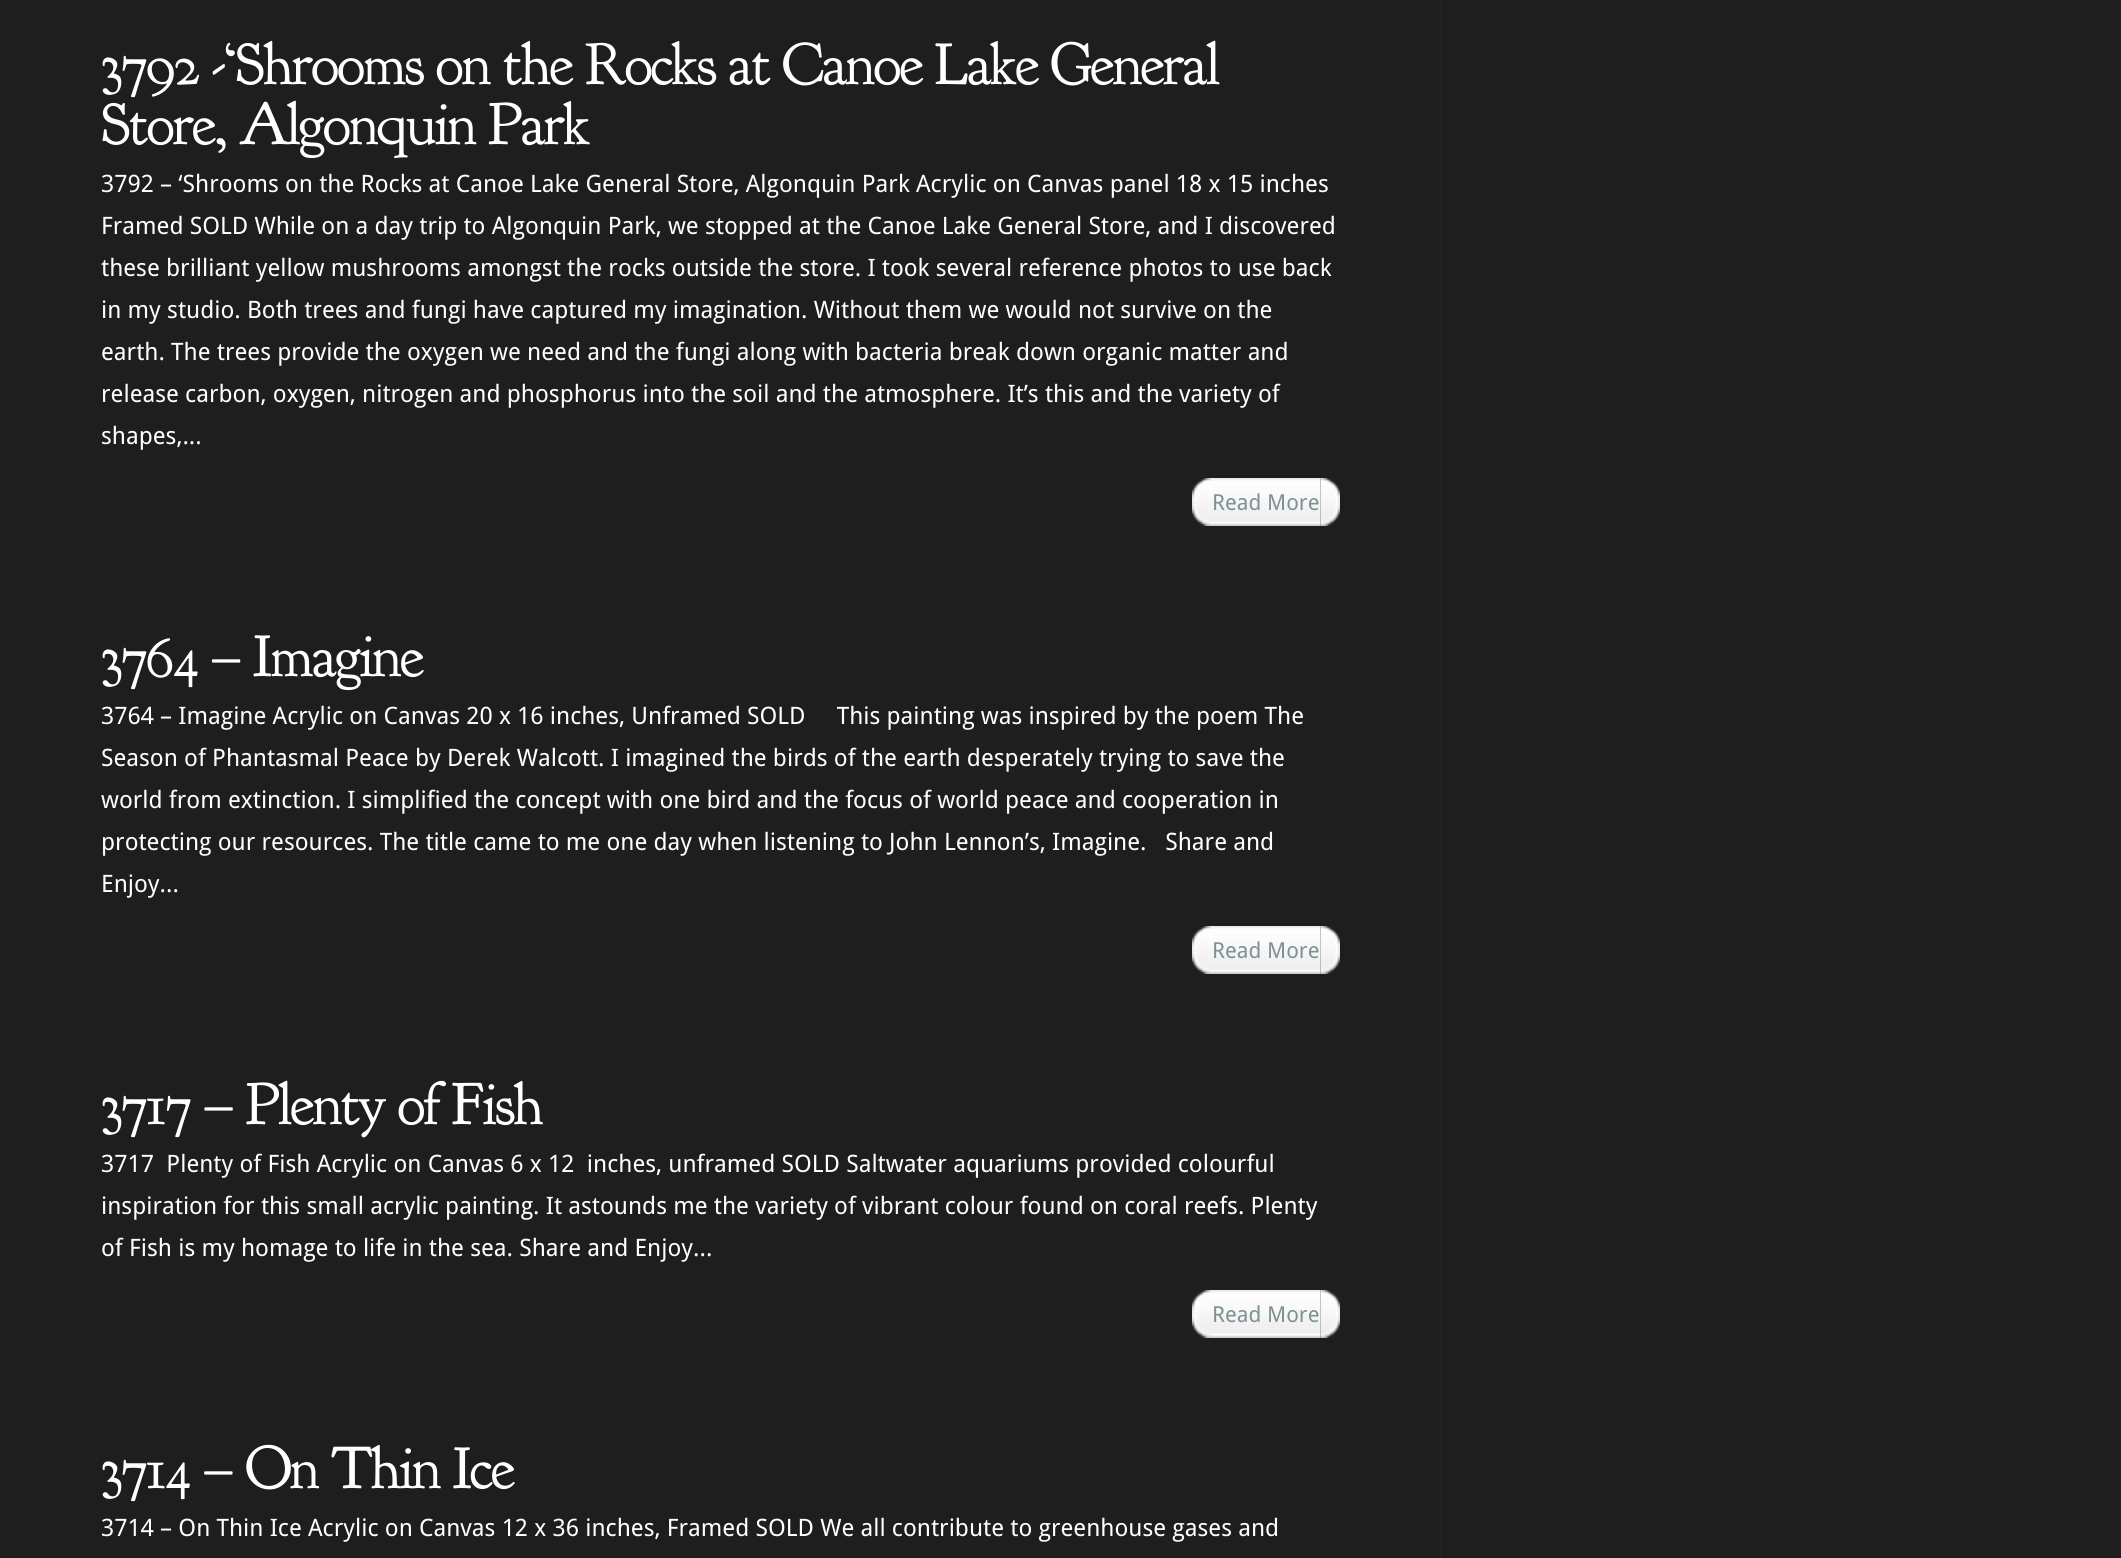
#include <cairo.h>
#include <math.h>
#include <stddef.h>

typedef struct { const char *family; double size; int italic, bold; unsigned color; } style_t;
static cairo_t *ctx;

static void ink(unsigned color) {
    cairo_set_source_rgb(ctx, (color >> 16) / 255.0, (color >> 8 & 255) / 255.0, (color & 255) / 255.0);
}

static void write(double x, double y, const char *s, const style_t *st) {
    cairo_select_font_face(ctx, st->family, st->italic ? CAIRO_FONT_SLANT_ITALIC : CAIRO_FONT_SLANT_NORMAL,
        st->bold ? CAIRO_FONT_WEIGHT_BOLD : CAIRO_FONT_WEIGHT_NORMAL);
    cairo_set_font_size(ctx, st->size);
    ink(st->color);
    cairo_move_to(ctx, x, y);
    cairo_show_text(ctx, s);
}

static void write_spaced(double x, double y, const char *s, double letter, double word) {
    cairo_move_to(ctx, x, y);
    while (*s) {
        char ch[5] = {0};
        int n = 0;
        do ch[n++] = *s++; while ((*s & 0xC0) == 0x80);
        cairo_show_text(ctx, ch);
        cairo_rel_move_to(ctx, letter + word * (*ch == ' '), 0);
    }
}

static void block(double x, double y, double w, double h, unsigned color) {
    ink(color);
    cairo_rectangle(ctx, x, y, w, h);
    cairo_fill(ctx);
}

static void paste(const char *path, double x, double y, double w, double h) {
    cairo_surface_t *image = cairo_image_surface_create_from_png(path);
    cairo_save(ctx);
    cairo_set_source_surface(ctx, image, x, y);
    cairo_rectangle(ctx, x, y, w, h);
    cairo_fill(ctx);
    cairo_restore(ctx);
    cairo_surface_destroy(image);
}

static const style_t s1 = {"Droid Sans", 24, 0, 0, 0xffffff};
static const style_t s2 = {"Droid Sans", 22, 0, 0, 0x7e9294};

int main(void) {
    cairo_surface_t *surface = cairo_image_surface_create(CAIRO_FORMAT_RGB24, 2121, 1558);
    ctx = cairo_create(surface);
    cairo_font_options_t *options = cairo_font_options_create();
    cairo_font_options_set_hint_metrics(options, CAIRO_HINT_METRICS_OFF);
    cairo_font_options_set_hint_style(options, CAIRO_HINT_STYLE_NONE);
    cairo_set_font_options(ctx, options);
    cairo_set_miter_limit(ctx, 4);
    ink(0x1e1e1e);
    cairo_paint(ctx);
    block(1440, 0, 2, 1558, 0x232323);
    cairo_select_font_face(ctx, "Goudy Bookletter 1911", CAIRO_FONT_SLANT_NORMAL, CAIRO_FONT_WEIGHT_NORMAL);
    cairo_set_font_size(ctx, 60);
    ink(0xffffff);
    write_spaced(101, 84, "3792 -‘Shrooms on the Rocks at Canoe Lake General", -2, 0);
    write_spaced(101, 144, "Store, Algonquin Park", -2, 0);
    write(101, 192, "3792 – ‘Shrooms on the Rocks at Canoe Lake General Store, Algonquin Park Acrylic on Canvas panel 18 x 15 inches", &s1);
    write(101, 234, "Framed SOLD While on a day trip to Algonquin Park, we stopped at the Canoe Lake General Store, and I discovered", &s1);
    write(101, 276, "these brilliant yellow mushrooms amongst the rocks outside the store. I took several reference photos to use back", &s1);
    write(101, 318, "in my studio. Both trees and fungi have captured my imagination. Without them we would not survive on the", &s1);
    write(101, 360, "earth. The trees provide the oxygen we need and the fungi along with bacteria break down organic matter and", &s1);
    write(101, 402, "release carbon, oxygen, nitrogen and phosphorus into the soil and the atmosphere. It’s this and the variety of", &s1);
    write(101, 444, "shapes,...", &s1);
    paste("pic1.png", 1320, 478, 20, 48);
    paste("pic2.png", 1192, 478, 128, 48);
    write(1212, 510, "Read More", &s2);
    cairo_select_font_face(ctx, "Goudy Bookletter 1911", CAIRO_FONT_SLANT_NORMAL, CAIRO_FONT_WEIGHT_NORMAL);
    cairo_set_font_size(ctx, 60);
    ink(0xffffff);
    write_spaced(101, 676, "3764 – Imagine", -2, 0);
    write(101, 724, "3764 – Imagine Acrylic on Canvas 20 x 16 inches, Unframed SOLD     This painting was inspired by the poem The", &s1);
    write(101, 766, "Season of Phantasmal Peace by Derek Walcott. I imagined the birds of the earth desperately trying to save the", &s1);
    write(101, 808, "world from extinction. I simplified the concept with one bird and the focus of world peace and cooperation in", &s1);
    write(101, 850, "protecting our resources. The title came to me one day when listening to John Lennon’s, Imagine.   Share and", &s1);
    write(101, 892, "Enjoy...", &s1);
    paste("pic1.png", 1320, 926, 20, 48);
    paste("pic2.png", 1192, 926, 128, 48);
    write(1212, 958, "Read More", &s2);
    cairo_select_font_face(ctx, "Goudy Bookletter 1911", CAIRO_FONT_SLANT_NORMAL, CAIRO_FONT_WEIGHT_NORMAL);
    cairo_set_font_size(ctx, 60);
    ink(0xffffff);
    write_spaced(101, 1124, "3717 – Plenty of Fish", -2, 0);
    write(101, 1172, "3717  Plenty of Fish Acrylic on Canvas 6 x 12  inches, unframed SOLD Saltwater aquariums provided colourful", &s1);
    write(101, 1214, "inspiration for this small acrylic painting. It astounds me the variety of vibrant colour found on coral reefs. Plenty", &s1);
    write(101, 1256, "of Fish is my homage to life in the sea. Share and Enjoy...", &s1);
    paste("pic1.png", 1320, 1290, 20, 48);
    paste("pic2.png", 1192, 1290, 128, 48);
    write(1212, 1322, "Read More", &s2);
    cairo_select_font_face(ctx, "Goudy Bookletter 1911", CAIRO_FONT_SLANT_NORMAL, CAIRO_FONT_WEIGHT_NORMAL);
    cairo_set_font_size(ctx, 60);
    ink(0xffffff);
    write_spaced(101, 1488, "3714 – On Thin Ice", -2, 0);
    write(101, 1536, "3714 – On Thin Ice Acrylic on Canvas 12 x 36 inches, Framed SOLD We all contribute to greenhouse gases and", &s1);
    cairo_surface_write_to_png(surface, "screenshot.png");
    cairo_font_options_destroy(options);
    cairo_destroy(ctx);
    cairo_surface_destroy(surface);
    return 0;
}
